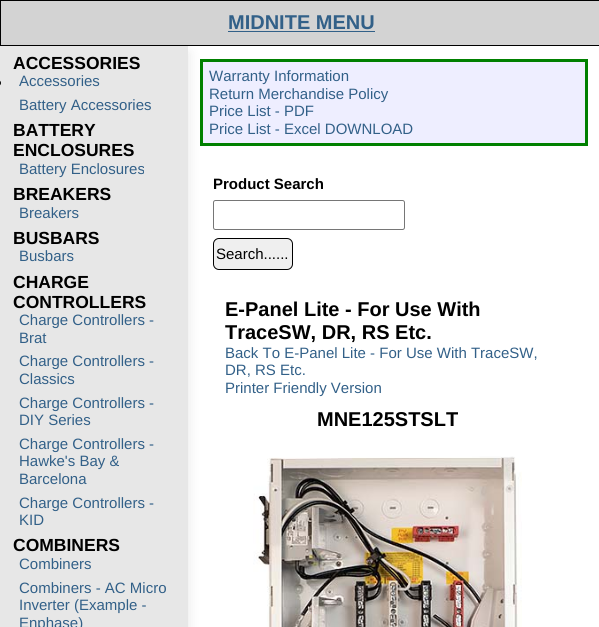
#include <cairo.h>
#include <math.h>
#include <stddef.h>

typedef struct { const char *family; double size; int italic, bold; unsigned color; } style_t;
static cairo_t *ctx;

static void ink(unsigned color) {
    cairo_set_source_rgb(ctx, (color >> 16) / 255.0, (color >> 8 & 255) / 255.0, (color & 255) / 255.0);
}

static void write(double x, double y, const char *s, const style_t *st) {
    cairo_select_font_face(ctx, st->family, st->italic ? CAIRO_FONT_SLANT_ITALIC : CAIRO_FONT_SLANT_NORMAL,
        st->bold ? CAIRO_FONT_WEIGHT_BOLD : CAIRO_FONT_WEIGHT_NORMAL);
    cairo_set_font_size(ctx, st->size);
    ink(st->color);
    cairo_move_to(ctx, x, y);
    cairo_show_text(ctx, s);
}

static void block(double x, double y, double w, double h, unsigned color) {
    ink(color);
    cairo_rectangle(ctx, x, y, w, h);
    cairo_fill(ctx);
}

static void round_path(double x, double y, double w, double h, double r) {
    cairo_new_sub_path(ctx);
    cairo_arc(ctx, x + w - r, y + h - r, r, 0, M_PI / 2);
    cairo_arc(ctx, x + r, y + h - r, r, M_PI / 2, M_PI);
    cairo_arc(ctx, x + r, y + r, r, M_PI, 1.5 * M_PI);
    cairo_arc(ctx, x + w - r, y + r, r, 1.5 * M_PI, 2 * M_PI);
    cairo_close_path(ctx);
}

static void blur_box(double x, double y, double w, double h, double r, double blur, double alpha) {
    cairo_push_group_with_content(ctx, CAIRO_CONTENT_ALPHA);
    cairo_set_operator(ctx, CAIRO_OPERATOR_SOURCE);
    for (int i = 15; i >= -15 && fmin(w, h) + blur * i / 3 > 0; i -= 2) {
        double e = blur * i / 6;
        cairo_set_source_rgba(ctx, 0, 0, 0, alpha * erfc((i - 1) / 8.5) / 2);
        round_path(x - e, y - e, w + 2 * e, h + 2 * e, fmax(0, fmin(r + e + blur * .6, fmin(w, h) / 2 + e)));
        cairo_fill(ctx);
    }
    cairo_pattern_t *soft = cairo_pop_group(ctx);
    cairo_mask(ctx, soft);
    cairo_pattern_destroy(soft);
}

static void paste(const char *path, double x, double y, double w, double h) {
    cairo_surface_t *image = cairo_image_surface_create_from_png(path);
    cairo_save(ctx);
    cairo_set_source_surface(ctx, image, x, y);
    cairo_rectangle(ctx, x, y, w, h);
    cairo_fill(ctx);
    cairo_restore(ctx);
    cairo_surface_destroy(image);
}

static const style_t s1 = {"Liberation Sans", 20, 0, 1, 0x326088};
static const style_t s2 = {"Liberation Sans", 17.5, 0, 1, 0x000000};
static const style_t s3 = {"Liberation Sans", 15, 0, 0, 0x326088};
static const style_t s4 = {"Liberation Sans", 15, 0, 1, 0x000000};
static const style_t s5 = {"Liberation Sans", 15, 0, 0, 0x000000};
static const style_t s6 = {"Liberation Sans", 20, 0, 1, 0x000000};

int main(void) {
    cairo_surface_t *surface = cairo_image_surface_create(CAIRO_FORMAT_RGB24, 599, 627);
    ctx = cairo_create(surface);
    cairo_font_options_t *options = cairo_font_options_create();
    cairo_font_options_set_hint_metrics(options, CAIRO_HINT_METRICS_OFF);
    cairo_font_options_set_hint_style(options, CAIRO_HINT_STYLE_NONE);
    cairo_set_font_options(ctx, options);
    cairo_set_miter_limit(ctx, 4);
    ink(0xffffff);
    cairo_paint(ctx);
    ink(0xd3d3d3);
    cairo_rectangle(ctx, 0.5, 0.5, 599, 45);
    cairo_fill_preserve(ctx);
    ink(0x000000);
    cairo_set_line_width(ctx, 1);
    cairo_stroke(ctx);
    write(228, 29, "MIDNITE MENU", &s1);
    block(228, 31, 147, 1, 0x326088);
    ink(0x000000);
    blur_box(0, 53, 188, 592, 0, 6, 0.1);
    block(0, 46, 188, 581, 0xe7e7e7);
    write(13, 69, "ACCESSORIES", &s2);
    round_path(-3.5, 80.5, 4, 5, 2.5);
    cairo_stroke(ctx);
    write(19, 86, "Accessories", &s3);
    write(19, 110, "Battery Accessories", &s3);
    write(13, 136, "BATTERY", &s2);
    write(13, 156, "ENCLOSURES", &s2);
    write(19, 174, "Battery Enclosures", &s3);
    write(13, 200, "BREAKERS", &s2);
    write(19, 218, "Breakers", &s3);
    write(13, 244, "BUSBARS", &s2);
    write(19, 261, "Busbars", &s3);
    write(13, 288, "CHARGE", &s2);
    write(13, 308, "CONTROLLERS", &s2);
    write(19, 325, "Charge Controllers -", &s3);
    write(19, 343, "Brat", &s3);
    write(19, 366, "Charge Controllers -", &s3);
    write(19, 384, "Classics", &s3);
    write(19, 408, "Charge Controllers -", &s3);
    write(19, 425, "DIY Series", &s3);
    write(19, 449, "Charge Controllers -", &s3);
    write(19, 466, "Hawke's Bay &", &s3);
    write(19, 484, "Barcelona", &s3);
    write(19, 508, "Charge Controllers -", &s3);
    write(19, 525, "KID", &s3);
    write(13, 551, "COMBINERS", &s2);
    write(19, 569, "Combiners", &s3);
    write(19, 593, "Combiners - AC Micro", &s3);
    write(19, 610, "Inverter (Example -", &s3);
    write(19, 628, "Enphase)", &s3);
    ink(0xeeeeff);
    cairo_rectangle(ctx, 201.5, 60.5, 385, 84);
    cairo_fill_preserve(ctx);
    ink(0x008000);
    cairo_set_line_width(ctx, 3);
    cairo_stroke(ctx);
    write(209, 81, "Warranty Information", &s3);
    write(209, 99, "Return Merchandise Policy", &s3);
    write(209, 116, "Price List - PDF", &s3);
    write(209, 134, "Price List - Excel DOWNLOAD", &s3);
    write(213, 189, "Product Search", &s4);
    round_path(213.5, 200.5, 191, 29, 2);
    ink(0x767676);
    cairo_set_line_width(ctx, 1);
    cairo_stroke(ctx);
    ink(0xefefef);
    round_path(213.5, 238.5, 79, 31, 5.5);
    cairo_fill_preserve(ctx);
    ink(0x000000);
    cairo_stroke(ctx);
    write(216, 259, "Search......", &s5);
    write(225, 316, "E-Panel Lite - For Use With", &s6);
    write(225, 339, "TraceSW, DR, RS Etc.", &s6);
    write(225, 358, "Back To E-Panel Lite - For Use With TraceSW,", &s3);
    write(225, 375, "DR, RS Etc.", &s3);
    write(225, 393, "Printer Friendly Version", &s3);
    write(317, 426, "MNE125STSLT", &s6);
    paste("pic1.png", 253, 456, 269, 171);
    cairo_surface_write_to_png(surface, "screenshot.png");
    cairo_font_options_destroy(options);
    cairo_destroy(ctx);
    cairo_surface_destroy(surface);
    return 0;
}
